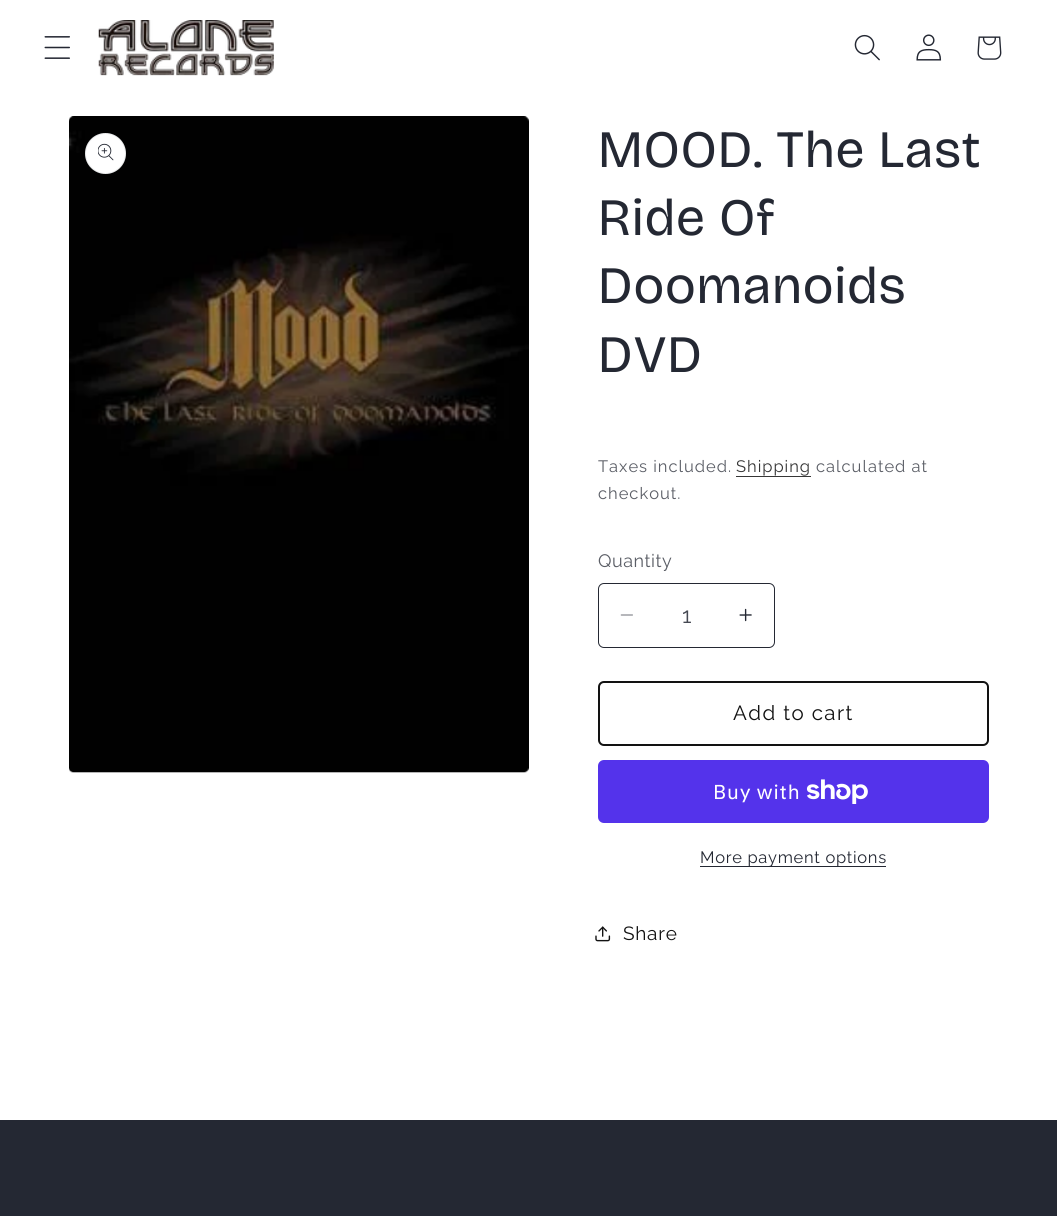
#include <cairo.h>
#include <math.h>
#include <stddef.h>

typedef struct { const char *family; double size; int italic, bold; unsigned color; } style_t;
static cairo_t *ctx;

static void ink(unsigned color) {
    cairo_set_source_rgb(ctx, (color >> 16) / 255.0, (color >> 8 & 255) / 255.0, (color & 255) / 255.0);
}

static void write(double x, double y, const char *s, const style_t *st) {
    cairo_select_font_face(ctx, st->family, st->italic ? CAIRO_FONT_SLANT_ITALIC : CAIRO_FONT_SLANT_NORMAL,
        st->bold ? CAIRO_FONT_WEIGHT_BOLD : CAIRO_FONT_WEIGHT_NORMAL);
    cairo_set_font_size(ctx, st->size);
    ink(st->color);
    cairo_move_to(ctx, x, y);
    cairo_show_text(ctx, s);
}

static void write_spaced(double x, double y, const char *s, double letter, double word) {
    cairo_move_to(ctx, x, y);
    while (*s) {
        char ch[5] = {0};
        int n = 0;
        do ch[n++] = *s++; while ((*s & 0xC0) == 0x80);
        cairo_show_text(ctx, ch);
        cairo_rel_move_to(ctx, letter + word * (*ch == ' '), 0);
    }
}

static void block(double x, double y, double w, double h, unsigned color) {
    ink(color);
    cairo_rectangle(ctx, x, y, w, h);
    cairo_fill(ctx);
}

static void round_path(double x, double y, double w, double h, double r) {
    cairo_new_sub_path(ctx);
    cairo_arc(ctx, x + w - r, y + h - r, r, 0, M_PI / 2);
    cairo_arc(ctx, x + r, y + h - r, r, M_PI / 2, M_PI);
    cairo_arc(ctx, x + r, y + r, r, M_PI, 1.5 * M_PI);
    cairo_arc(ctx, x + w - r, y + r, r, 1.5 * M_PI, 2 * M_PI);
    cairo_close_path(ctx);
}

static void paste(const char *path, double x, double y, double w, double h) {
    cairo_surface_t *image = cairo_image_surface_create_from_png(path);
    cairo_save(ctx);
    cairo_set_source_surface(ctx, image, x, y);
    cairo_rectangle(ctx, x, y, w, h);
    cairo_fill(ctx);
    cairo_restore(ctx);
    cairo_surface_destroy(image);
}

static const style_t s1 = {"Raleway", 22, 0, 0, 0x454852};

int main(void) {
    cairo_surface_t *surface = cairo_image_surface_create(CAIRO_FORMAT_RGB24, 1057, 1216);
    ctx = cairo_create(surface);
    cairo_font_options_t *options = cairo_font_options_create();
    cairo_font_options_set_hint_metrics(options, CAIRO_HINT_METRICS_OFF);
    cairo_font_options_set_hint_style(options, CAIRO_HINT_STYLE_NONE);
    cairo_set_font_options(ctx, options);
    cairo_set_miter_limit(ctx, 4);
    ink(0xffffff);
    cairo_paint(ctx);
    paste("pic1.png", 44, 36, 26, 23);
    paste("pic2.png", 98, 20, 176, 56);
    paste("pic3.png", 854, 34, 26, 27);
    paste("pic4.png", 916, 34, 26, 27);
    paste("pic5.png", 977, 36, 25, 24);
    paste("pic6.png", 69, 116, 460, 657);
    ink(0xffffff);
    cairo_arc(ctx, 105.5, 153.5, 20.5, 0, 2 * M_PI);
    cairo_fill(ctx);
    cairo_arc(ctx, 105.5, 153.5, 20, 0, 2 * M_PI);
    cairo_set_source_rgba(ctx, 0.141, 0.157, 0.2, 0.1);
    cairo_set_line_width(ctx, 1);
    cairo_stroke(ctx);
    paste("pic7.png", 98, 143, 16, 18);
    cairo_select_font_face(ctx, "Bricolage Grotesque", CAIRO_FONT_SLANT_NORMAL, CAIRO_FONT_WEIGHT_NORMAL);
    cairo_set_font_size(ctx, 52.5);
    ink(0x242833);
    write_spaced(598, 167, "MOOD. The Last", 0.75, 0);
    write_spaced(598, 235, "Ride Of", 0.75, 0);
    write_spaced(598, 303, "Doomanoids", 0.75, 0);
    write_spaced(598, 372, "DVD", 0.75, 0);
    cairo_select_font_face(ctx, "Raleway", CAIRO_FONT_SLANT_NORMAL, CAIRO_FONT_WEIGHT_NORMAL);
    cairo_set_font_size(ctx, 16.5);
    ink(0x5b5e66);
    write_spaced(598, 472, "Taxes included.", 1, 0);
    ink(0x363636);
    write_spaced(736, 472, "Shipping", 1, 0);
    block(736, 476, 75, 1, 0x363636);
    ink(0x5b5e66);
    write_spaced(816, 472, "calculated at", 1, 0);
    write_spaced(598, 499, "checkout.", 1, 0);
    cairo_set_font_size(ctx, 18);
    write_spaced(598, 567, "Quantity", 0.5, 0);
    paste("pic8.png", 620, 614, 13, 2);
    paste("pic9.png", 739, 608, 13, 14);
    round_path(598.5, 583.5, 176, 64, 5.5);
    ink(0x242833);
    cairo_stroke(ctx);
    write(682, 623, "1", &s1);
    round_path(599, 682, 389, 63, 5);
    ink(0x121212);
    cairo_set_line_width(ctx, 2);
    cairo_stroke(ctx);
    cairo_set_font_size(ctx, 20.5);
    write_spaced(733, 720, "Add to cart", 1.4, 0);
    ink(0x5433eb);
    round_path(598, 760, 391, 63, 6);
    cairo_fill(ctx);
    cairo_select_font_face(ctx, "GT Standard", CAIRO_FONT_SLANT_NORMAL, CAIRO_FONT_WEIGHT_NORMAL);
    cairo_set_font_size(ctx, 20);
    ink(0xffffff);
    write_spaced(713, 799, "Buy with", 0.75, 0);
    paste("pic10.png", 806, 779, 62, 25);
    block(700, 866, 186, 1, 0x242833);
    cairo_select_font_face(ctx, "Raleway", CAIRO_FONT_SLANT_NORMAL, CAIRO_FONT_WEIGHT_NORMAL);
    cairo_set_font_size(ctx, 16.5);
    write_spaced(700, 863, "More payment options", 0.7, 0);
    paste("pic11.png", 595, 926, 16, 16);
    cairo_set_font_size(ctx, 19);
    ink(0x121212);
    write_spaced(623, 940, "Share", 0.75, 0);
    block(0, 1120, 1057, 96, 0x242833);
    cairo_surface_write_to_png(surface, "screenshot.png");
    cairo_font_options_destroy(options);
    cairo_destroy(ctx);
    cairo_surface_destroy(surface);
    return 0;
}
